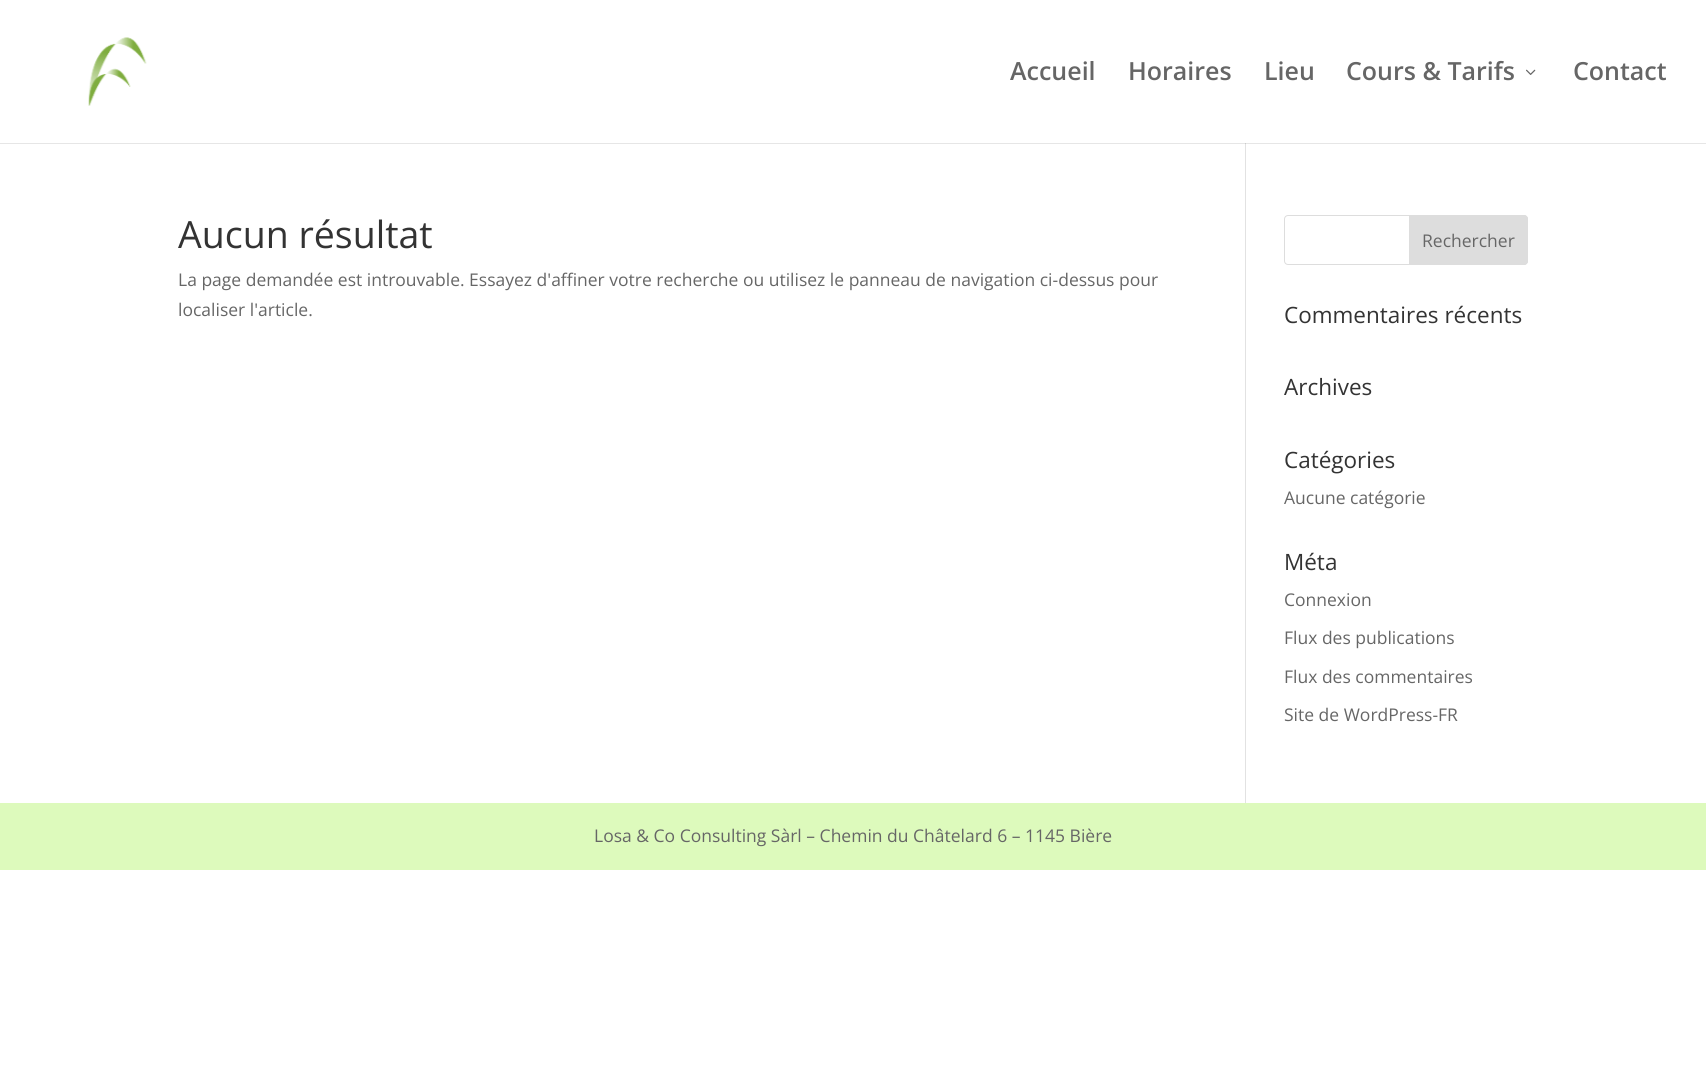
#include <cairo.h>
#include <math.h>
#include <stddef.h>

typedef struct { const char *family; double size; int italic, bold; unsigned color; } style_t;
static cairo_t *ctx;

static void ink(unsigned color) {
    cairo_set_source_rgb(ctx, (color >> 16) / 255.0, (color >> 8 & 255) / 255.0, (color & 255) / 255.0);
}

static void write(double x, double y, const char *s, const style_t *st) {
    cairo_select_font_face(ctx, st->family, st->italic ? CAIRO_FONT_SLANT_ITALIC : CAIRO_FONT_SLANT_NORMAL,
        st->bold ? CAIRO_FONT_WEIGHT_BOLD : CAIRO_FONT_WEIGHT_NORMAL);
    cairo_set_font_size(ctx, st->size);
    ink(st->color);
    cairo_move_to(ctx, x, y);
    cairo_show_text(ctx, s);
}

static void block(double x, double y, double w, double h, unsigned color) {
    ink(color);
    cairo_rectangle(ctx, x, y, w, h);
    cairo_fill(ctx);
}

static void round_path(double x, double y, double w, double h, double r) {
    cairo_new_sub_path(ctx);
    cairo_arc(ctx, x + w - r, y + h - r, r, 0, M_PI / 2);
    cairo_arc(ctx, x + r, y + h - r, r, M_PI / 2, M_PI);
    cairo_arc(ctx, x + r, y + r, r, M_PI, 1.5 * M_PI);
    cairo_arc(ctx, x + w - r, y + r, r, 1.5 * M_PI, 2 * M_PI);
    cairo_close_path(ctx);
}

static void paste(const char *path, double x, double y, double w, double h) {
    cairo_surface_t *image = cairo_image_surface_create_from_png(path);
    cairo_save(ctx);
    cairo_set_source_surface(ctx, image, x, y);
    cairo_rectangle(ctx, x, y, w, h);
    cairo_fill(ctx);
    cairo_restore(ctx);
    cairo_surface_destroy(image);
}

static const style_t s1 = {"Open Sans SemiBold", 25, 0, 0, 0x666666};
static const style_t s2 = {"Open Sans", 37.5, 0, 0, 0x333333};
static const style_t s3 = {"Open Sans", 17.5, 0, 0, 0x666666};
static const style_t s4 = {"Open Sans", 22.5, 0, 0, 0x333333};

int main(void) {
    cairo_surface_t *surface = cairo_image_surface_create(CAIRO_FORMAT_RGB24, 1706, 1083);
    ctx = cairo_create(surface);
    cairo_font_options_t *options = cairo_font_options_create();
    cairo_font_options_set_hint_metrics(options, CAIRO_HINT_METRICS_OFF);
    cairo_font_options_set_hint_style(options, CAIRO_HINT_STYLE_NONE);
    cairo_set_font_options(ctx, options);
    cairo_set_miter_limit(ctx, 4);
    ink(0xffffff);
    cairo_paint(ctx);
    block(0, 143, 1706, 1, 0xe6e6e6);
    paste("pic1.png", 88, 37, 59, 69);
    write(1010, 80, "Accueil", &s1);
    write(1128, 80, "Horaires", &s1);
    write(1264, 80, "Lieu", &s1);
    write(1346, 80, "Cours & Tarifs", &s1);
    paste("pic2.png", 1526, 69, 10, 6);
    write(1573, 80, "Contact", &s1);
    block(1245, 143, 1, 660, 0xe2e2e2);
    block(1245, 143, 1, 1, 0xcbcbcb);
    write(178, 248, "Aucun résultat", &s2);
    write(178, 286, "La page demandée est introuvable. Essayez d'affiner votre recherche ou utilisez le panneau de navigation ci-dessus pour", &s3);
    write(178, 316, "localiser l'article.", &s3);
    round_path(1284.5, 215.5, 243, 49, 3.5);
    ink(0xdddddd);
    cairo_set_line_width(ctx, 1);
    cairo_stroke(ctx);
    cairo_new_path(ctx);
    cairo_move_to(ctx, 1409.5, 215.5);
    cairo_line_to(ctx, 1524, 215.5);
    cairo_curve_to(ctx, 1526, 215.5, 1527.5, 217, 1527.5, 219);
    cairo_line_to(ctx, 1527.5, 261);
    cairo_curve_to(ctx, 1527.5, 263, 1526, 264.5, 1524, 264.5);
    cairo_line_to(ctx, 1409.5, 264.5);
    cairo_close_path(ctx);
    cairo_fill_preserve(ctx);
    cairo_stroke(ctx);
    write(1422, 247, "Rechercher", &s3);
    write(1284, 323, "Commentaires récents", &s4);
    write(1284, 395, "Archives", &s4);
    write(1284, 468, "Catégories", &s4);
    write(1284, 504, "Aucune catégorie", &s3);
    write(1284, 570, "Méta", &s4);
    write(1284, 606, "Connexion", &s3);
    write(1284, 644, "Flux des publications", &s3);
    write(1284, 683, "Flux des commentaires", &s3);
    write(1284, 721, "Site de WordPress-FR", &s3);
    block(0, 803, 1706, 67, 0xddfabc);
    write(594, 842, "Losa & Co Consulting Sàrl – Chemin du Châtelard 6 – 1145 Bière", &s3);
    cairo_surface_write_to_png(surface, "screenshot.png");
    cairo_font_options_destroy(options);
    cairo_destroy(ctx);
    cairo_surface_destroy(surface);
    return 0;
}
